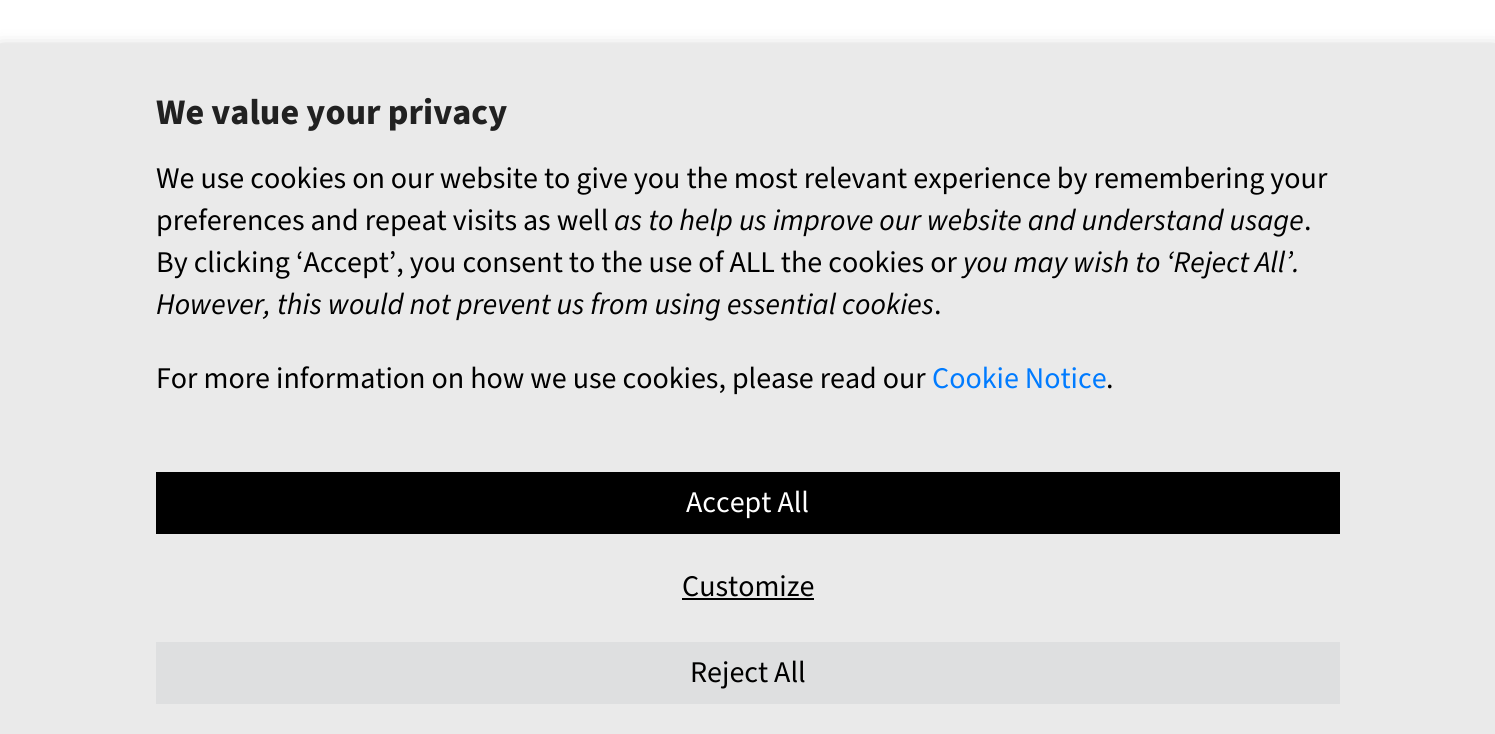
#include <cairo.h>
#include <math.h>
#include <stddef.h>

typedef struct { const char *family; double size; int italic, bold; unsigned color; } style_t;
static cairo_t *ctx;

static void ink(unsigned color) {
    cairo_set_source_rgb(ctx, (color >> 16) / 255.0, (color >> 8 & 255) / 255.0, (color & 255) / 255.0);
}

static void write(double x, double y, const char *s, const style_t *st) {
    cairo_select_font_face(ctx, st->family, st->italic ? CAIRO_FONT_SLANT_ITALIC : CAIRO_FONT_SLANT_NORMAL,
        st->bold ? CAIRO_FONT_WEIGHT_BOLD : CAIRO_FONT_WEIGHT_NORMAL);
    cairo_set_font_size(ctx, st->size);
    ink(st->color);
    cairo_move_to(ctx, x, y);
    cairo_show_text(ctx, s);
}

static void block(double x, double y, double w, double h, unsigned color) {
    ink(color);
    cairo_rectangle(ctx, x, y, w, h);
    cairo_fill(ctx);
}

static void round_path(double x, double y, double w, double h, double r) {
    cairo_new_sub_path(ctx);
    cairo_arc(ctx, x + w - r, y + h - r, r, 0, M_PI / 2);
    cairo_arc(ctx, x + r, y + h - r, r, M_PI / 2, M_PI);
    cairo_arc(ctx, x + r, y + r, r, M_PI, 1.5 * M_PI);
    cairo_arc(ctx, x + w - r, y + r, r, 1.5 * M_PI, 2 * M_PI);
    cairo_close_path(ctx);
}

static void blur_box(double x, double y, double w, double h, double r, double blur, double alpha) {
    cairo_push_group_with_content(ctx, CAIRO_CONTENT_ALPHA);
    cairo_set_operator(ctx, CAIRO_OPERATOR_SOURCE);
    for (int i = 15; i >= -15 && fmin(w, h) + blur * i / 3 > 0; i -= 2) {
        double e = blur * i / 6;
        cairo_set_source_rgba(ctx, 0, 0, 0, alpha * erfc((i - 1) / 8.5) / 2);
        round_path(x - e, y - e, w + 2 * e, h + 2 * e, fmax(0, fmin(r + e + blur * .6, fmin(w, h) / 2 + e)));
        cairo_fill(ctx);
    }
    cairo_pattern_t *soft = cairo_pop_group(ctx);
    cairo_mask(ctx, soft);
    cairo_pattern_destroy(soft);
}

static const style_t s1 = {"Source Sans Pro", 36, 0, 1, 0x212121};
static const style_t s2 = {"Source Sans Pro", 30, 0, 0, 0x000000};
static const style_t s3 = {"Source Sans Pro", 30, 1, 0, 0x000000};
static const style_t s4 = {"Source Sans Pro", 30, 0, 0, 0x007bff};
static const style_t s5 = {"Source Sans Pro", 30, 0, 0, 0xffffff};

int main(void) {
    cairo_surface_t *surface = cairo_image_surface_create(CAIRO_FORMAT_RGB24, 1495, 734);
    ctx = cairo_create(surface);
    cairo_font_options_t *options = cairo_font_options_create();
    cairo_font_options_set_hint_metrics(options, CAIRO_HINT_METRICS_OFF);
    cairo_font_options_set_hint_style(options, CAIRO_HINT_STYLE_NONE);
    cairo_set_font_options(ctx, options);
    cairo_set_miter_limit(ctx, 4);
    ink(0xffffff);
    cairo_paint(ctx);
    ink(0x000000);
    blur_box(0, 54, 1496, 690, 0, 10, 0.5);
    block(0, 44, 1495, 690, 0xeaeaea);
    write(156, 124, "We value your privacy", &s1);
    write(156, 188, "We use cookies on our website to give you the most relevant experience by remembering your", &s2);
    write(156, 230, "preferences and repeat visits as well", &s2);
    write(614, 230, "as to help us improve our website and understand usage", &s3);
    write(1304, 230, ".", &s2);
    write(156, 272, "By clicking ‘Accept’, you consent to the use of ALL the cookies or", &s2);
    write(963, 272, "you may wish to ‘Reject All’.", &s3);
    write(156, 314, "However, this would not prevent us from using essential cookies", &s3);
    write(934, 314, ".", &s2);
    write(156, 388, "For more information on how we use cookies, please read our", &s2);
    write(932, 388, "Cookie Notice", &s4);
    write(1106, 388, ".", &s2);
    block(156, 472, 1184, 62, 0x000000);
    write(686, 512, "Accept All", &s5);
    write(682, 596, "Customize", &s2);
    block(682, 598, 132, 2, 0x000000);
    block(156, 642, 1184, 62, 0xdedfe0);
    write(690, 682, "Reject All", &s2);
    cairo_surface_write_to_png(surface, "screenshot.png");
    cairo_font_options_destroy(options);
    cairo_destroy(ctx);
    cairo_surface_destroy(surface);
    return 0;
}
